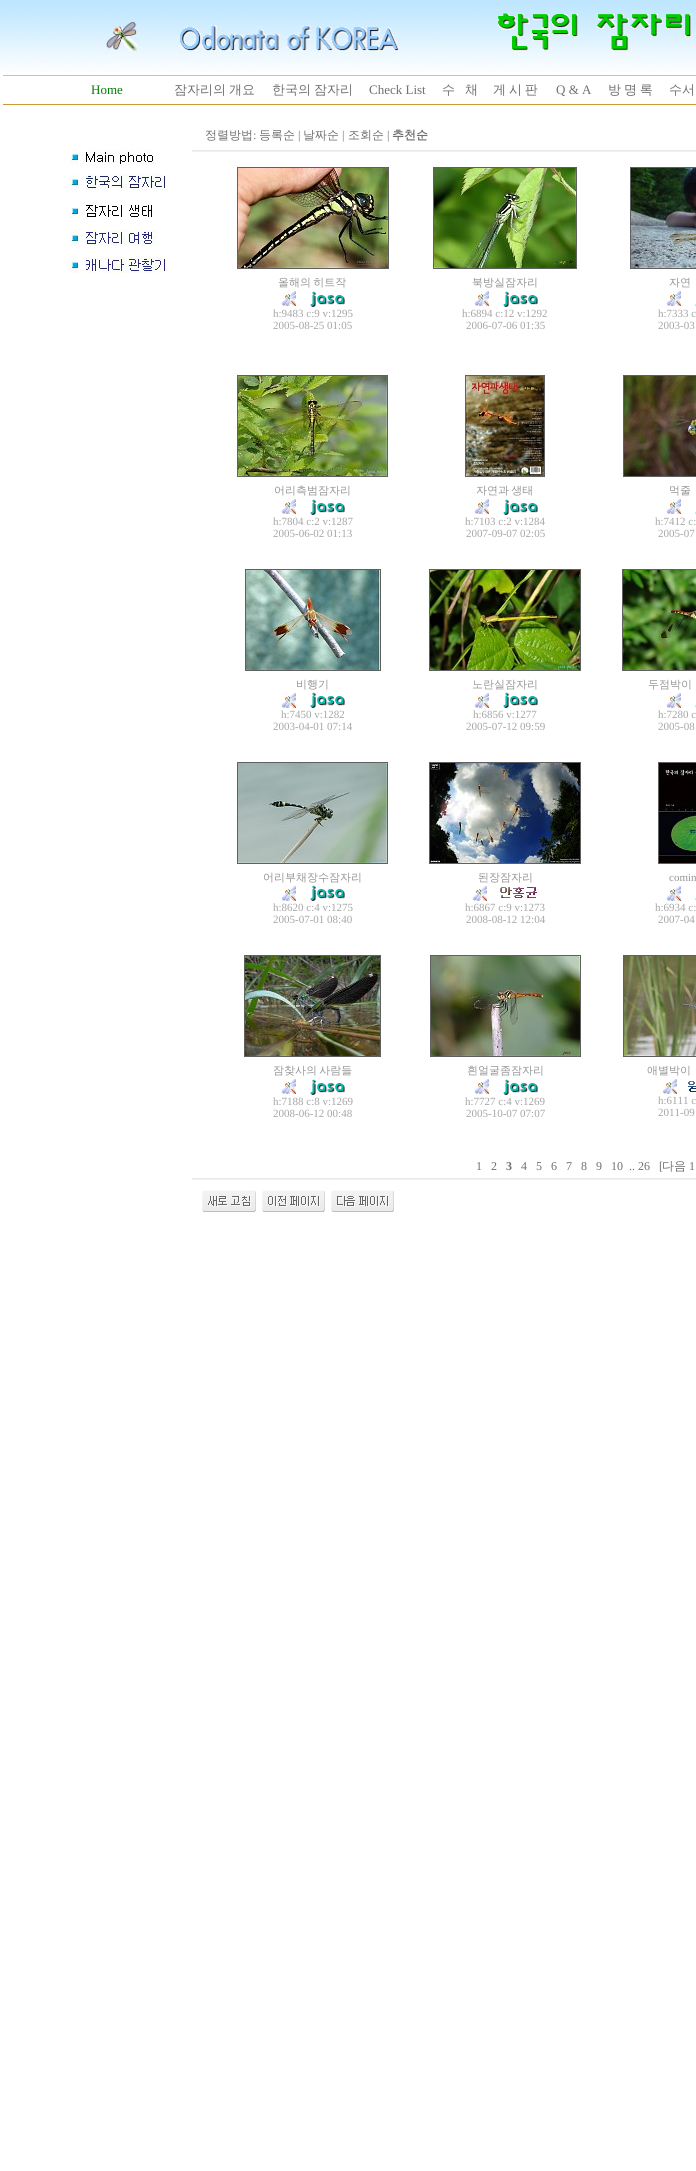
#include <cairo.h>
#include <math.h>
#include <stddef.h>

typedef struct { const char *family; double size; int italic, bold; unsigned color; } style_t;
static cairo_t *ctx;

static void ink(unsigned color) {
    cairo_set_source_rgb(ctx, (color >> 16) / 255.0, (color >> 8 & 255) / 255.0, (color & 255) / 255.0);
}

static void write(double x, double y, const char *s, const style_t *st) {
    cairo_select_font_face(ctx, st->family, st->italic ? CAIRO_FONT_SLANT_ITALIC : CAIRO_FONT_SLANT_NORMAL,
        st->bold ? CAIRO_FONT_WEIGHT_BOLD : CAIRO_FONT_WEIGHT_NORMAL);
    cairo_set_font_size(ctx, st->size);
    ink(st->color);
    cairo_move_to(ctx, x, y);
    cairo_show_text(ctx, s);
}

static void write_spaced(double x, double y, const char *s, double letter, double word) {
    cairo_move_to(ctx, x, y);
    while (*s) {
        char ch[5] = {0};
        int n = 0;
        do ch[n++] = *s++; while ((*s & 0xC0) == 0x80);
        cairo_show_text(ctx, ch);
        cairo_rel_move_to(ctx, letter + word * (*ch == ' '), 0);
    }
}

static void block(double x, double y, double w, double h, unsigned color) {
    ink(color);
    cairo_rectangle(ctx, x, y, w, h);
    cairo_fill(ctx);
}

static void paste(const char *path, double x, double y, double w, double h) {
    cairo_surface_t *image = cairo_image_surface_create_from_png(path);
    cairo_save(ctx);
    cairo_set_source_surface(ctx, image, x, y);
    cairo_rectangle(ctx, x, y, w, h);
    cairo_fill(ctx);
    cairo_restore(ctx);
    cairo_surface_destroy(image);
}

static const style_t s1 = {"Liberation Serif", 13, 0, 0, 0x008000};
static const style_t s2 = {"Liberation Serif", 13, 0, 0, 0x707070};
static const style_t s3 = {"WenQuanYi Zen Hei Medium", 13, 0, 0, 0x707070};
static const style_t s4 = {"WenQuanYi Zen Hei Medium", 12, 0, 0, 0x707070};
static const style_t s5 = {"Liberation Serif", 12, 0, 0, 0x707070};
static const style_t s6 = {"WenQuanYi Zen Hei", 12, 0, 1, 0x707070};
static const style_t s7 = {"Liberation Serif", 11, 0, 0, 0xa6a6a6};
static const style_t s8 = {"WenQuanYi Zen Hei Medium", 11, 0, 0, 0x959595};
static const style_t s9 = {"Liberation Serif", 11, 0, 0, 0x959595};
static const style_t s10 = {"Liberation Serif", 12, 0, 1, 0x707070};

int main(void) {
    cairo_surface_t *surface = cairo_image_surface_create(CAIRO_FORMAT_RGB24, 696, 2171);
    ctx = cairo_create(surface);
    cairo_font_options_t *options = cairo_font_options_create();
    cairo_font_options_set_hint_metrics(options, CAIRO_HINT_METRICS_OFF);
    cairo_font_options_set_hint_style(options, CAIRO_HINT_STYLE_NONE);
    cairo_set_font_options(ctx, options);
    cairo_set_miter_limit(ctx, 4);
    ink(0xffffff);
    cairo_paint(ctx);
    paste("pic1.png", 0, 0, 696, 72);
    paste("pic2.png", 106, 21, 31, 30);
    paste("pic3.png", 179, 25, 220, 26);
    paste("pic4.png", 498, 13, 194, 38);
    block(3, 75, 693, 1, 0x99ccff);
    write(91, 94, "Home", &s1);
    cairo_select_font_face(ctx, "WenQuanYi Zen Hei Medium", CAIRO_FONT_SLANT_NORMAL, CAIRO_FONT_WEIGHT_NORMAL);
    ink(0x707070);
    write_spaced(174, 94, "잠자리의 개요", 0, -1);
    write_spaced(272, 94, "한국의 잠자리", 0, -1);
    write(369, 94, "Check List", &s2);
    write(442, 94, "수", &s3);
    write(465, 94, "채", &s3);
    write_spaced(493, 94, "게 시 판", 0, -1);
    write(556, 94, "Q & A", &s2);
    cairo_select_font_face(ctx, "WenQuanYi Zen Hei Medium", CAIRO_FONT_SLANT_NORMAL, CAIRO_FONT_WEIGHT_NORMAL);
    write_spaced(608, 94, "방 명 록", 0, -1);
    write(669, 94, "수서", &s3);
    block(3, 104, 693, 1, 0xcc9933);
    paste("pic5.png", 70, 149, 88, 16);
    paste("pic6.png", 70, 174, 96, 16);
    paste("pic7.png", 72, 205, 80, 12);
    paste("pic8.png", 70, 230, 88, 16);
    paste("pic9.png", 70, 257, 96, 16);
    write(205, 139, "정렬방법", &s4);
    write(253, 139, ":", &s5);
    write(259, 139, "등록순", &s4);
    write(298, 139, "|", &s5);
    write(303, 139, "날짜순", &s4);
    write(342, 139, "|", &s5);
    write(348, 139, "조회순", &s4);
    write(387, 139, "|", &s5);
    write(392, 139, "추천순", &s6);
    block(192, 150, 504, 1, 0xeaeaea);
    block(192, 151, 504, 1, 0xf0f0f0);
    cairo_rectangle(ctx, 237.5, 167.5, 151, 101);
    ink(0x606060);
    cairo_set_line_width(ctx, 1);
    cairo_stroke(ctx);
    paste("pic10.png", 238, 168, 150, 100);
    cairo_select_font_face(ctx, "WenQuanYi Zen Hei Medium", CAIRO_FONT_SLANT_NORMAL, CAIRO_FONT_WEIGHT_NORMAL);
    cairo_set_font_size(ctx, 11);
    ink(0x959595);
    write_spaced(278, 286, "올해의 히트작", 0, -1);
    paste("pic11.png", 281, 291, 15, 15);
    paste("pic12.png", 310, 291, 35, 16);
    write(273, 317, "h:9483 c:9 v:1295", &s7);
    write(273, 329, "2005-08-25 01:05", &s7);
    cairo_rectangle(ctx, 433.5, 167.5, 143, 101);
    ink(0x606060);
    cairo_stroke(ctx);
    paste("pic13.png", 434, 168, 142, 100);
    write(472, 286, "북방실잠자리", &s8);
    paste("pic11.png", 474, 291, 15, 15);
    paste("pic12.png", 503, 291, 35, 16);
    write(462, 317, "h:6894 c:12 v:1292", &s7);
    write(466, 329, "2006-07-06 01:35", &s7);
    cairo_rectangle(ctx, 630.5, 167.5, 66, 101);
    ink(0x606060);
    cairo_stroke(ctx);
    paste("pic14.png", 631, 168, 65, 100);
    cairo_select_font_face(ctx, "WenQuanYi Zen Hei Medium", CAIRO_FONT_SLANT_NORMAL, CAIRO_FONT_WEIGHT_NORMAL);
    ink(0x959595);
    write_spaced(669, 286, "자연", 0, -1);
    paste("pic11.png", 666, 291, 15, 15);
    paste("pic15.png", 695, 304, 1, 2);
    write(658, 317, "h:7333 c", &s7);
    write(658, 329, "2003-03", &s7);
    cairo_rectangle(ctx, 237.5, 375.5, 150, 101);
    ink(0x606060);
    cairo_stroke(ctx);
    paste("pic16.png", 238, 376, 149, 100);
    write(274, 494, "어리측범잠자리", &s8);
    paste("pic11.png", 281, 499, 15, 15);
    paste("pic12.png", 310, 499, 35, 16);
    write(273, 525, "h:7804 c:2 v:1287", &s7);
    write(273, 537, "2005-06-02 01:13", &s7);
    cairo_rectangle(ctx, 465.5, 375.5, 79, 101);
    ink(0x606060);
    cairo_stroke(ctx);
    paste("pic17.png", 466, 376, 78, 100);
    cairo_select_font_face(ctx, "WenQuanYi Zen Hei Medium", CAIRO_FONT_SLANT_NORMAL, CAIRO_FONT_WEIGHT_NORMAL);
    ink(0x959595);
    write_spaced(476, 494, "자연과 생태", 0, -1);
    paste("pic11.png", 474, 499, 15, 15);
    paste("pic12.png", 503, 499, 35, 16);
    write(465, 525, "h:7103 c:2 v:1284", &s7);
    write(466, 537, "2007-09-07 02:05", &s7);
    cairo_rectangle(ctx, 623.5, 375.5, 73, 101);
    ink(0x606060);
    cairo_stroke(ctx);
    paste("pic18.png", 624, 376, 72, 100);
    cairo_select_font_face(ctx, "WenQuanYi Zen Hei Medium", CAIRO_FONT_SLANT_NORMAL, CAIRO_FONT_WEIGHT_NORMAL);
    ink(0x959595);
    write_spaced(669, 494, "먹줄", 0, -1);
    paste("pic11.png", 666, 499, 15, 15);
    paste("pic15.png", 695, 512, 1, 2);
    write(655, 525, "h:7412 c:", &s7);
    write(658, 537, "2005-07", &s7);
    cairo_rectangle(ctx, 245.5, 569.5, 135, 101);
    ink(0x606060);
    cairo_stroke(ctx);
    paste("pic19.png", 246, 570, 134, 100);
    write(296, 688, "비행기", &s8);
    paste("pic11.png", 281, 693, 15, 15);
    paste("pic12.png", 310, 692, 35, 16);
    write(281, 718, "h:7450 v:1282", &s7);
    write(273, 730, "2003-04-01 07:14", &s7);
    cairo_rectangle(ctx, 429.5, 569.5, 151, 101);
    ink(0x606060);
    cairo_stroke(ctx);
    paste("pic20.png", 430, 570, 150, 100);
    write(472, 688, "노란실잠자리", &s8);
    paste("pic11.png", 474, 693, 15, 15);
    paste("pic12.png", 503, 692, 35, 16);
    write(473, 718, "h:6856 v:1277", &s7);
    write(466, 730, "2005-07-12 09:59", &s7);
    cairo_rectangle(ctx, 622.5, 569.5, 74, 101);
    ink(0x606060);
    cairo_stroke(ctx);
    paste("pic21.png", 623, 570, 73, 100);
    write(648, 688, "두점박이", &s8);
    paste("pic11.png", 666, 693, 15, 15);
    paste("pic15.png", 695, 705, 1, 2);
    write(658, 718, "h:7280 c", &s7);
    write(658, 730, "2005-08", &s7);
    cairo_rectangle(ctx, 237.5, 762.5, 150, 101);
    ink(0x606060);
    cairo_stroke(ctx);
    paste("pic22.png", 238, 763, 149, 100);
    write(263, 881, "어리부채장수잠자리", &s8);
    paste("pic11.png", 281, 886, 15, 15);
    paste("pic12.png", 310, 885, 35, 16);
    write(273, 911, "h:8620 c:4 v:1275", &s7);
    write(273, 923, "2005-07-01 08:40", &s7);
    cairo_rectangle(ctx, 429.5, 762.5, 151, 101);
    ink(0x606060);
    cairo_stroke(ctx);
    paste("pic23.png", 430, 763, 150, 100);
    write(478, 881, "된장잠자리", &s8);
    paste("pic24.png", 472, 886, 15, 15);
    paste("pic25.png", 500, 887, 37, 11);
    write(465, 911, "h:6867 c:9 v:1273", &s7);
    write(466, 923, "2008-08-12 12:04", &s7);
    cairo_rectangle(ctx, 658.5, 762.5, 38, 101);
    ink(0x606060);
    cairo_stroke(ctx);
    paste("pic26.png", 659, 763, 37, 100);
    write(669, 881, "comin", &s9);
    paste("pic11.png", 666, 886, 15, 15);
    paste("pic15.png", 695, 898, 1, 2);
    write(655, 911, "h:6934 c:", &s7);
    write(658, 923, "2007-04", &s7);
    cairo_rectangle(ctx, 244.5, 955.5, 136, 101);
    ink(0x606060);
    cairo_stroke(ctx);
    paste("pic27.png", 245, 956, 135, 100);
    cairo_select_font_face(ctx, "WenQuanYi Zen Hei Medium", CAIRO_FONT_SLANT_NORMAL, CAIRO_FONT_WEIGHT_NORMAL);
    ink(0x959595);
    write_spaced(273, 1074, "잠찾사의 사람들", 0, -1);
    paste("pic11.png", 281, 1079, 15, 15);
    paste("pic12.png", 310, 1079, 35, 16);
    write(273, 1105, "h:7188 c:8 v:1269", &s7);
    write(273, 1117, "2008-06-12 00:48", &s7);
    cairo_rectangle(ctx, 430.5, 955.5, 150, 101);
    ink(0x606060);
    cairo_stroke(ctx);
    paste("pic28.png", 431, 956, 149, 100);
    write(467, 1074, "흰얼굴좀잠자리", &s8);
    paste("pic11.png", 474, 1079, 15, 15);
    paste("pic12.png", 503, 1079, 35, 16);
    write(465, 1105, "h:7727 c:4 v:1269", &s7);
    write(466, 1117, "2005-10-07 07:07", &s7);
    cairo_rectangle(ctx, 623.5, 955.5, 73, 101);
    ink(0x606060);
    cairo_stroke(ctx);
    paste("pic29.png", 624, 956, 72, 100);
    cairo_select_font_face(ctx, "WenQuanYi Zen Hei Medium", CAIRO_FONT_SLANT_NORMAL, CAIRO_FONT_WEIGHT_NORMAL);
    ink(0x959595);
    write_spaced(647, 1074, "애별박이", 0, -1);
    paste("pic24.png", 662, 1079, 15, 15);
    paste("pic30.png", 688, 1081, 8, 11);
    write(658, 1104, "h:6111 c", &s7);
    write(658, 1116, "2011-09", &s7);
    write(476, 1170, "1", &s5);
    write(491, 1170, "2", &s5);
    write(506, 1170, "3", &s10);
    write(521, 1170, "4", &s5);
    write(536, 1170, "5", &s5);
    write(551, 1170, "6", &s5);
    write(566, 1170, "7", &s5);
    write(581, 1170, "8", &s5);
    write(596, 1170, "9", &s5);
    write(611, 1170, "10", &s5);
    write(629, 1170, ".. 26", &s5);
    write(659, 1170, "[", &s5);
    write(662, 1170, "다음", &s4);
    write(689, 1170, "1", &s5);
    block(192, 1178, 504, 1, 0xeaeaea);
    block(192, 1179, 504, 1, 0xf0f0f0);
    paste("pic31.png", 202, 1190, 54, 22);
    paste("pic32.png", 262, 1190, 63, 22);
    paste("pic33.png", 331, 1190, 63, 22);
    cairo_surface_write_to_png(surface, "screenshot.png");
    cairo_font_options_destroy(options);
    cairo_destroy(ctx);
    cairo_surface_destroy(surface);
    return 0;
}
